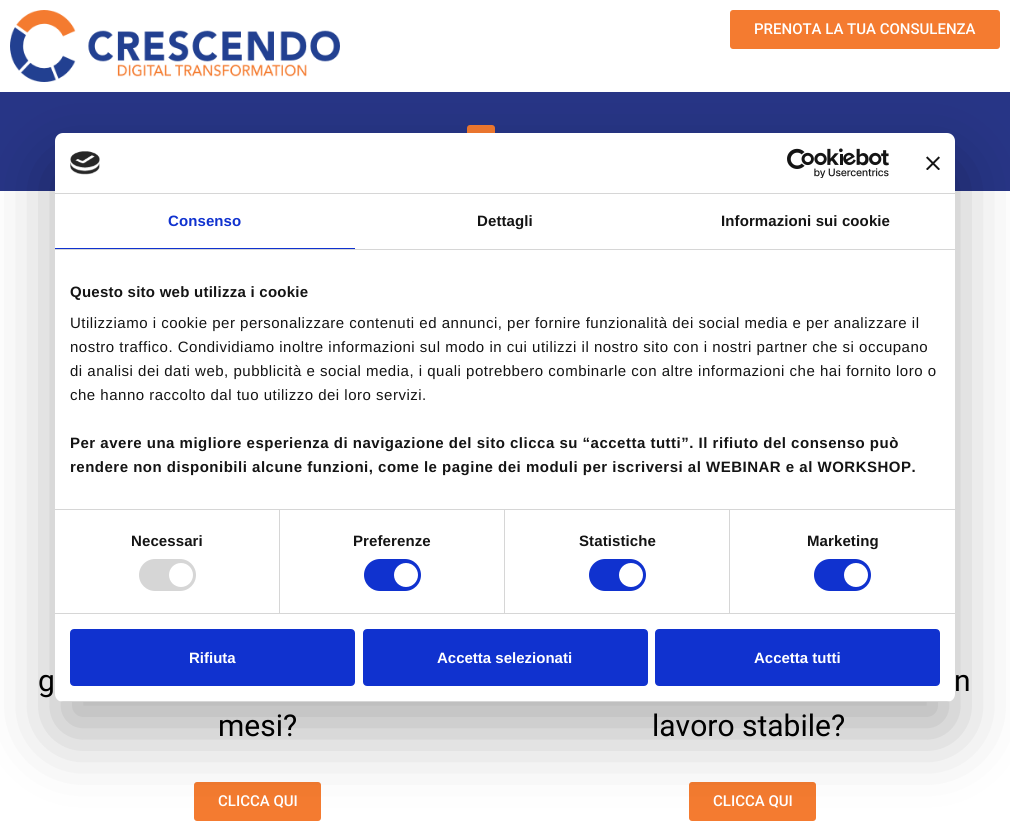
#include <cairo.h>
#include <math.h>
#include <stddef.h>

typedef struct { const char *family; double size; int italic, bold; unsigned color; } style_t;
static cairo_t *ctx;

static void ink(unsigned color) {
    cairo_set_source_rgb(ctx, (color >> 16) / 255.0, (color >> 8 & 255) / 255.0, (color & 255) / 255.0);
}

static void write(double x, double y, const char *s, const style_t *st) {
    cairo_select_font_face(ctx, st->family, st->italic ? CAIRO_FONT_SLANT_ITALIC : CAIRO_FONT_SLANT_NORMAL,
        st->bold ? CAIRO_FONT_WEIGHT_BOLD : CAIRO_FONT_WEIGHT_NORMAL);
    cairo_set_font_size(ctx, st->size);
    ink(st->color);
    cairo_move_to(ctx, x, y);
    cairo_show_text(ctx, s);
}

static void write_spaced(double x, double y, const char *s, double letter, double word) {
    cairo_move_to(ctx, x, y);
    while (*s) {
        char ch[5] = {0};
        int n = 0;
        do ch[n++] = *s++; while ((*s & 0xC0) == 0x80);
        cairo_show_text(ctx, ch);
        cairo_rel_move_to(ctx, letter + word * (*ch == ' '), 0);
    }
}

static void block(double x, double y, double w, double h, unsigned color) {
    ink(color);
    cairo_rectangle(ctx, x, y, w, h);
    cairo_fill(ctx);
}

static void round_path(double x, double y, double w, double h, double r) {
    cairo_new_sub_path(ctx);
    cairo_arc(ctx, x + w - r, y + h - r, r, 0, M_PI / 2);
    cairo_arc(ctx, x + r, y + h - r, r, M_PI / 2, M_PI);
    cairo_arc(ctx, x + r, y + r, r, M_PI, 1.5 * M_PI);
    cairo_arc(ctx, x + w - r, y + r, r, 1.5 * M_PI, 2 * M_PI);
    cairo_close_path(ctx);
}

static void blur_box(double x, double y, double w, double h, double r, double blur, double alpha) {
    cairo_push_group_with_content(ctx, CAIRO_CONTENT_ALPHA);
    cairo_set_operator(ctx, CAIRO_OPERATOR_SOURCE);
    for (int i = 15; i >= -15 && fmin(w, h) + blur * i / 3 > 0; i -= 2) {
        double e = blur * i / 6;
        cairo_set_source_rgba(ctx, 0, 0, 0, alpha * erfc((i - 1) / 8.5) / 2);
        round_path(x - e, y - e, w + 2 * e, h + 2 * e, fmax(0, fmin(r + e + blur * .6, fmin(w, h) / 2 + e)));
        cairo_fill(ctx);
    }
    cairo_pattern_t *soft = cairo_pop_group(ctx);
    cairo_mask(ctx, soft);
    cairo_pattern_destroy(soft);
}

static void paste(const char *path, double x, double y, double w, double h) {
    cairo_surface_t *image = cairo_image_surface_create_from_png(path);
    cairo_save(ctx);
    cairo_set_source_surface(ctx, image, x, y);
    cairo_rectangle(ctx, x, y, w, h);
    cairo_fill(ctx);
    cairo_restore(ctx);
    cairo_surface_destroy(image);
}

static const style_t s1 = {"Roboto Medium", 15, 0, 0, 0xffffff};
static const style_t s2 = {"Liberation Sans", 15, 0, 1, 0xffffff};
static const style_t s3 = {"Roboto", 30, 0, 0, 0x000000};

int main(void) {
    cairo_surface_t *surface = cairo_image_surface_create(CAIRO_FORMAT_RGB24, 1010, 835);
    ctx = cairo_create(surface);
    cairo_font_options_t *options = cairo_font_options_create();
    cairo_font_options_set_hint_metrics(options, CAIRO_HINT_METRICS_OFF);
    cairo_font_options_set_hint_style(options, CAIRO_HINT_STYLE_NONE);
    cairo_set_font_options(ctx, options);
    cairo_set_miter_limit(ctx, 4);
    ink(0xffffff);
    cairo_paint(ctx);
    paste("pic1.png", 10, 10, 330, 72);
    ink(0xf47b30);
    round_path(730, 10, 270, 39, 3);
    cairo_fill(ctx);
    write(754, 34, "PRENOTA LA TUA CONSULENZA", &s1);
    block(0, 92, 1010, 99, 0x273586);
    ink(0xf47b30);
    round_path(467, 125, 28, 33, 3);
    cairo_fill(ctx);
    round_path(194, 782, 127, 39, 3);
    cairo_fill(ctx);
    round_path(689, 782, 127, 39, 3);
    cairo_fill(ctx);
    ink(0x000000);
    blur_box(55, 165, 900, 569, 8, 34, 0.3);
    ink(0xffffff);
    round_path(55, 133, 900, 569, 8);
    cairo_fill(ctx);
    block(55, 193, 900, 1, 0xd6d6d6);
    paste("pic2.png", 70, 151, 30, 24);
    paste("pic3.png", 787, 148, 102, 30);
    paste("pic4.png", 926, 156, 14, 14);
    block(55, 249, 900, 1, 0xd6d6d6);
    block(55, 248, 300, 1, 0x1032cf);
    cairo_select_font_face(ctx, "Liberation Sans", CAIRO_FONT_SLANT_NORMAL, CAIRO_FONT_WEIGHT_BOLD);
    write_spaced(168, 226, "Consenso", 0.1, 0);
    ink(0x141414);
    write_spaced(477, 226, "Dettagli", 0.1, 0);
    write_spaced(721, 226, "Informazioni sui cookie", 0.1, 0);
    block(55, 509, 900, 1, 0xd6d6d6);
    ink(0x141414);
    write_spaced(70, 297, "Questo sito web utilizza i cookie", 0.25, 0);
    cairo_select_font_face(ctx, "Liberation Sans", CAIRO_FONT_SLANT_NORMAL, CAIRO_FONT_WEIGHT_NORMAL);
    write_spaced(70, 328, "Utilizziamo i cookie per personalizzare contenuti ed annunci, per fornire funzionalità dei social media e per analizzare il", 0.5, 0);
    write_spaced(70, 352, "nostro traffico. Condividiamo inoltre informazioni sul modo in cui utilizzi il nostro sito con i nostri partner che si occupano", 0.5, 0);
    write_spaced(70, 376, "di analisi dei dati web, pubblicità e social media, i quali potrebbero combinarle con altre informazioni che hai fornito loro o", 0.5, 0);
    write_spaced(70, 400, "che hanno raccolto dal tuo utilizzo dei loro servizi.", 0.5, 0);
    cairo_select_font_face(ctx, "Liberation Sans", CAIRO_FONT_SLANT_NORMAL, CAIRO_FONT_WEIGHT_BOLD);
    write_spaced(70, 448, "Per avere una migliore esperienza di navigazione del sito clicca su “accetta tutti”. Il rifiuto del consenso può", 0.5, 0);
    write_spaced(70, 472, "rendere non disponibili alcune funzioni, come le pagine dei moduli per iscriversi al WEBINAR e al WORKSHOP.", 0.5, 0);
    block(55, 613, 900, 1, 0xd6d6d6);
    block(279, 510, 1, 103, 0xd6d6d6);
    ink(0x141414);
    write_spaced(131, 546, "Necessari", 0.1, 0);
    ink(0xd6d6d6);
    round_path(139, 559, 57, 32, 16);
    cairo_fill(ctx);
    ink(0xffffff);
    cairo_arc(ctx, 181, 575, 12, 0, 2 * M_PI);
    cairo_fill(ctx);
    block(504, 510, 1, 103, 0xd6d6d6);
    ink(0x141414);
    write_spaced(353, 546, "Preferenze", 0.1, 0);
    ink(0x1032cf);
    round_path(364, 559, 57, 32, 16);
    cairo_fill(ctx);
    ink(0xffffff);
    cairo_arc(ctx, 406, 575, 12, 0, 2 * M_PI);
    cairo_fill(ctx);
    block(729, 510, 1, 103, 0xd6d6d6);
    ink(0x141414);
    write_spaced(579, 546, "Statistiche", 0.1, 0);
    ink(0x1032cf);
    round_path(589, 559, 57, 32, 16);
    cairo_fill(ctx);
    ink(0xffffff);
    cairo_arc(ctx, 631, 575, 12, 0, 2 * M_PI);
    cairo_fill(ctx);
    ink(0x141414);
    write_spaced(807, 546, "Marketing", 0.1, 0);
    ink(0x1032cf);
    round_path(814, 559, 57, 32, 16);
    cairo_fill(ctx);
    ink(0xffffff);
    cairo_arc(ctx, 856, 575, 12, 0, 2 * M_PI);
    cairo_fill(ctx);
    cairo_save(ctx);
    round_path(55, 133, 900, 569, 8);
    cairo_clip(ctx);
    block(55, 701, 900, 1, 0xd6d6d6);
    cairo_restore(ctx);
    ink(0x1032cf);
    round_path(71, 630, 283, 55, 3);
    cairo_fill_preserve(ctx);
    cairo_stroke(ctx);
    write(189, 663, "Rifiuta", &s2);
    ink(0x1032cf);
    round_path(364, 630, 283, 55, 3);
    cairo_fill_preserve(ctx);
    cairo_stroke(ctx);
    write(437, 663, "Accetta selezionati", &s2);
    ink(0x1032cf);
    round_path(656, 630, 283, 55, 3);
    cairo_fill_preserve(ctx);
    cairo_stroke(ctx);
    write(754, 663, "Accetta tutti", &s2);
    write(38, 691, "g", &s3);
    write(218, 736, "mesi?", &s3);
    write(218, 806, "CLICCA QUI", &s1);
    write(954, 691, "n", &s3);
    write(652, 736, "lavoro stabile?", &s3);
    write(713, 806, "CLICCA QUI", &s1);
    cairo_surface_write_to_png(surface, "screenshot.png");
    cairo_font_options_destroy(options);
    cairo_destroy(ctx);
    cairo_surface_destroy(surface);
    return 0;
}
